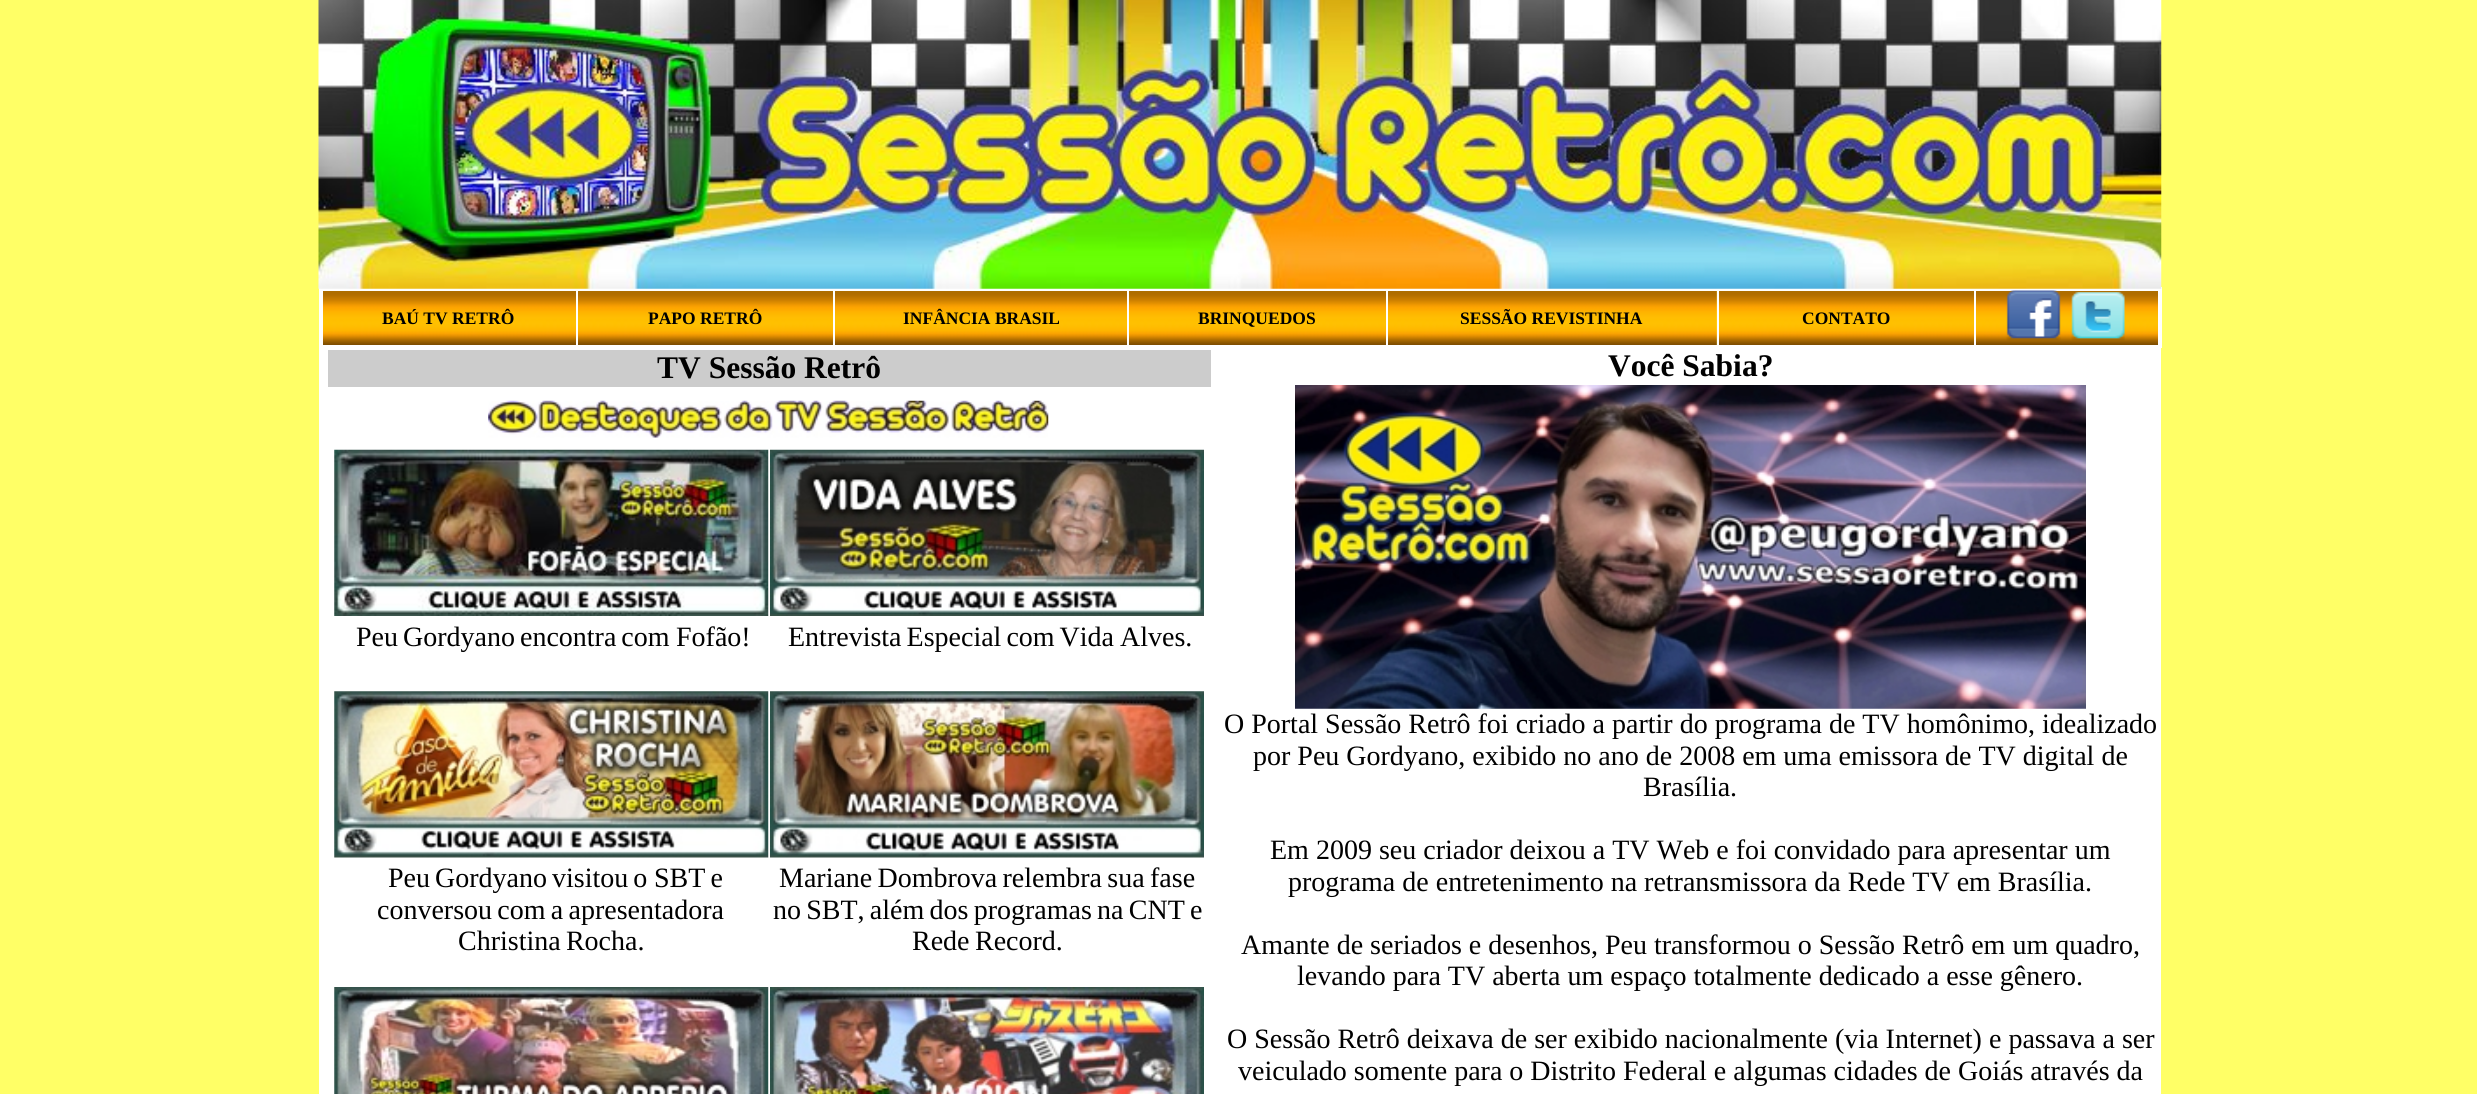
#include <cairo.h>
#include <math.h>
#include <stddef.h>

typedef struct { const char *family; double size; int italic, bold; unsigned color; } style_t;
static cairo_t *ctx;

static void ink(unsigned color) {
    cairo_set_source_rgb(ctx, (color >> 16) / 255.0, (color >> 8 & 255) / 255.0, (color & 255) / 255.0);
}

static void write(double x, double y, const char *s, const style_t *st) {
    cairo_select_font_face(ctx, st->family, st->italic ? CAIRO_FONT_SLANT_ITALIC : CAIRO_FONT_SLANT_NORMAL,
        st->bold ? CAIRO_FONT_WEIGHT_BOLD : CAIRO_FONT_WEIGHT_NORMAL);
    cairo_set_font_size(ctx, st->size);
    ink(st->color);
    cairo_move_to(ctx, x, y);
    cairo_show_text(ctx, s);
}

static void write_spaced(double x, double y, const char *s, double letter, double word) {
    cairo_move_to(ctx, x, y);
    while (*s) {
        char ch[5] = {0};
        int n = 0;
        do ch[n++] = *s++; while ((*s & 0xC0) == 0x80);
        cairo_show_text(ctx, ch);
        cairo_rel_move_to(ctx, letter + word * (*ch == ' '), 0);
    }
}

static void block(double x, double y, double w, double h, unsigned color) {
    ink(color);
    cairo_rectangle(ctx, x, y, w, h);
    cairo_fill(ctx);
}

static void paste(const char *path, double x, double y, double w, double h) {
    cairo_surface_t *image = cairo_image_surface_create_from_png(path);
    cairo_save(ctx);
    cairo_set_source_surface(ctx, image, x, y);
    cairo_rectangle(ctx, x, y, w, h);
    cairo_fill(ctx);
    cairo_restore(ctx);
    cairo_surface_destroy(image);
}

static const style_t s1 = {"Liberation Serif", 17.5, 0, 1, 0x000000};
static const style_t s2 = {"Liberation Serif", 31.5, 0, 1, 0x000000};
static const style_t s3 = {"Liberation Serif", 28, 0, 0, 0x000000};

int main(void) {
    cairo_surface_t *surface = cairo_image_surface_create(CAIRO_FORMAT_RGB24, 2477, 1094);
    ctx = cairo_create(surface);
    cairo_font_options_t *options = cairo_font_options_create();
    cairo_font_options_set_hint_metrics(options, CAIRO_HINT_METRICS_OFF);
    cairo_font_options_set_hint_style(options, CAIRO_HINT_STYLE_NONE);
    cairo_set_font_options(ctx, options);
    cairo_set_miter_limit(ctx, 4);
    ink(0xffff66);
    cairo_paint(ctx);
    block(576, 289, 2, 59, 0xffffff);
    block(833, 289, 2, 59, 0xffffff);
    block(1127, 289, 2, 59, 0xffffff);
    block(1386, 289, 2, 59, 0xffffff);
    paste("pic6.png", 1388, 291, 329, 54);
    paste("pic7.png", 1716, 291, 258, 54);
    block(1717, 289, 2, 59, 0xffffff);
    block(1974, 289, 2, 59, 0xffffff);
    block(319, 288, 1842, 3, 0xffffff);
    block(2158, 287, 4, 61, 0xffffff);
    block(319, 345, 1842, 3, 0xffffff);
    block(319, 287, 4, 61, 0xffffff);
    paste("pic1.png", 318, 0, 1844, 289);
    paste("pic2.png", 323, 291, 253, 54);
    write(382, 324, "BAÚ TV RETRÔ", &s1);
    paste("pic3.png", 578, 291, 255, 54);
    write(648, 324, "PAPO RETRÔ", &s1);
    paste("pic4.png", 835, 291, 292, 54);
    write(903, 324, "INFÂNCIA BRASIL", &s1);
    paste("pic5.png", 1129, 291, 257, 54);
    write(1198, 324, "BRINQUEDOS", &s1);
    write(1460, 324, "SESSÃO REVISTINHA", &s1);
    write(1802, 324, "CONTATO", &s1);
    paste("pic8.png", 1976, 291, 182, 54);
    paste("pic9.png", 2006, 290, 55, 51);
    paste("pic10.png", 2071, 292, 54, 49);
    block(319, 348, 1842, 746, 0xffffff);
    block(328, 350, 883, 37, 0xcccccc);
    write(657, 378, "TV Sessão Retrô", &s2);
    paste("pic11.png", 488, 400, 561, 38);
    paste("pic12.png", 334, 449, 435, 167);
    cairo_select_font_face(ctx, "Liberation Serif", CAIRO_FONT_SLANT_NORMAL, CAIRO_FONT_WEIGHT_NORMAL);
    cairo_set_font_size(ctx, 28);
    write_spaced(356, 646, "Peu Gordyano encontra com", 0, -2);
    write(676, 646, "Fofão!", &s3);
    paste("pic13.png", 770, 449, 434, 167);
    write_spaced(788, 646, "Entrevista Especial com Vida", 0, -2);
    write(1120, 646, "Alves.", &s3);
    paste("pic14.png", 334, 691, 435, 167);
    write_spaced(388, 887, "Peu Gordyano visitou o", 0, -2);
    write_spaced(654, 887, "SBT e", 0, -1.75);
    write_spaced(377, 919, "conversou com a apresentadora", 0, -1.75);
    write_spaced(458, 950, "Christina Rocha.", 0, -1.75);
    paste("pic15.png", 770, 691, 434, 167);
    write_spaced(779, 887, "Mariane Dombrova relembra sua", 0, -1.75);
    write(1150, 887, "fase", &s3);
    write_spaced(773, 919, "no SBT, além dos programas na CNT e", 0, -1.75);
    write(912, 950, "Rede", &s3);
    write(975, 950, "Record.", &s3);
    paste("pic16.png", 334, 987, 435, 107);
    paste("pic17.png", 770, 987, 434, 107);
    write(1608, 376, "Você Sabia?", &s2);
    paste("pic18.png", 1295, 385, 791, 324);
    write(1224, 733, "O Portal Sessão Retrô foi criado a partir do programa de TV homônimo, idealizado", &s3);
    write(1253, 765, "por Peu Gordyano, exibido no ano de 2008 em uma emissora de TV digital de", &s3);
    write(1643, 796, "Brasília.", &s3);
    write(1270, 859, "Em 2009 seu criador deixou a TV Web e foi convidado para apresentar um", &s3);
    write(1288, 891, "programa de entretenimento na retransmissora da Rede TV em Brasília.", &s3);
    write(1241, 954, "Amante de seriados e desenhos, Peu transformou o Sessão Retrô em um quadro,", &s3);
    write(1297, 985, "levando para TV aberta um espaço totalmente dedicado a esse gênero.", &s3);
    write(1227, 1048, "O Sessão Retrô deixava de ser exibido nacionalmente (via Internet) e passava a ser", &s3);
    write(1238, 1080, "veiculado somente para o Distrito Federal e algumas cidades de Goiás através da", &s3);
    cairo_surface_write_to_png(surface, "screenshot.png");
    cairo_font_options_destroy(options);
    cairo_destroy(ctx);
    cairo_surface_destroy(surface);
    return 0;
}
